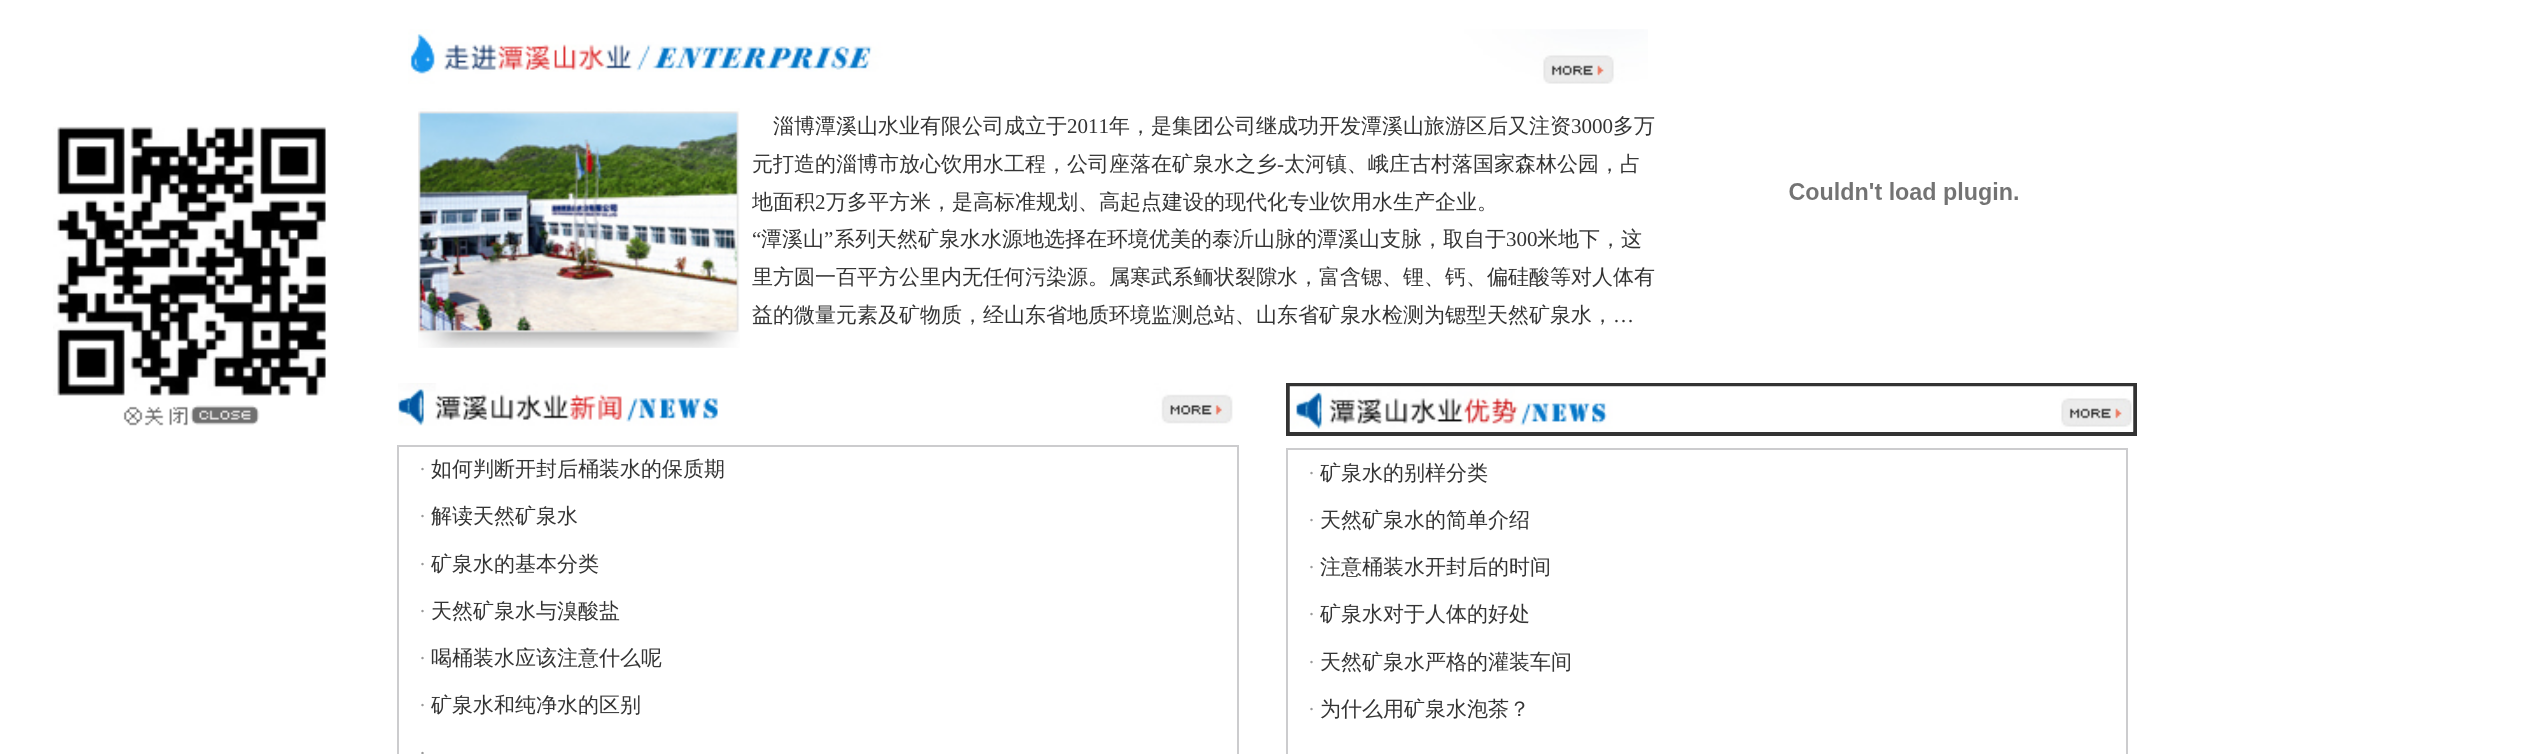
#include <cairo.h>
#include <math.h>
#include <stddef.h>

typedef struct { const char *family; double size; int italic, bold; unsigned color; } style_t;
static cairo_t *ctx;

static void ink(unsigned color) {
    cairo_set_source_rgb(ctx, (color >> 16) / 255.0, (color >> 8 & 255) / 255.0, (color & 255) / 255.0);
}

static void write(double x, double y, const char *s, const style_t *st) {
    cairo_select_font_face(ctx, st->family, st->italic ? CAIRO_FONT_SLANT_ITALIC : CAIRO_FONT_SLANT_NORMAL,
        st->bold ? CAIRO_FONT_WEIGHT_BOLD : CAIRO_FONT_WEIGHT_NORMAL);
    cairo_set_font_size(ctx, st->size);
    ink(st->color);
    cairo_move_to(ctx, x, y);
    cairo_show_text(ctx, s);
}

static void paste(const char *path, double x, double y, double w, double h) {
    cairo_surface_t *image = cairo_image_surface_create_from_png(path);
    cairo_save(ctx);
    cairo_set_source_surface(ctx, image, x, y);
    cairo_rectangle(ctx, x, y, w, h);
    cairo_fill(ctx);
    cairo_restore(ctx);
    cairo_surface_destroy(image);
}

static const style_t s1 = {"WenQuanYi Zen Hei Medium", 21, 0, 0, 0x333333};
static const style_t s2 = {"Liberation Serif", 21, 0, 0, 0x333333};
static const style_t s3 = {"Liberation Serif", 21, 0, 0, 0x999999};

int main(void) {
    cairo_surface_t *surface = cairo_image_surface_create(CAIRO_FORMAT_RGB24, 2524, 754);
    ctx = cairo_create(surface);
    cairo_font_options_t *options = cairo_font_options_create();
    cairo_font_options_set_hint_metrics(options, CAIRO_HINT_METRICS_OFF);
    cairo_font_options_set_hint_style(options, CAIRO_HINT_STYLE_NONE);
    cairo_set_font_options(ctx, options);
    cairo_set_miter_limit(ctx, 4);
    ink(0xffffff);
    cairo_paint(ctx);
    paste("pic1.png", 53, 126, 273, 270);
    paste("pic2.png", 123, 405, 137, 21);
    paste("pic3.png", 408, 29, 1240, 55);
    paste("pic4.png", 418, 108, 322, 240);
    write(773, 133, "淄博潭溪山水业有限公司成立于", &s1);
    write(1067, 133, "2011", &s2);
    write(1109, 133, "年，是集团公司继成功开发潭溪山旅游区后又注资", &s1);
    write(1571, 133, "3000", &s2);
    write(1613, 133, "多万", &s1);
    write(752, 171, "元打造的淄博市放心饮用水工程，公司座落在矿泉水之乡", &s1);
    write(1277, 171, "-", &s2);
    write(1284, 171, "太河镇、峨庄古村落国家森林公园，占", &s1);
    write(752, 209, "地面积", &s1);
    write(815, 209, "2", &s2);
    write(826, 209, "万多平方米，是高标准规划、高起点建设的现代化专业饮用水生产企业。", &s1);
    write(752, 246, "“", &s2);
    write(761, 246, "潭溪山", &s1);
    write(824, 246, "”", &s2);
    write(834, 246, "系列天然矿泉水水源地选择在环境优美的泰沂山脉的潭溪山支脉，取自于", &s1);
    write(1506, 246, "300", &s2);
    write(1537, 246, "米地下，这", &s1);
    write(752, 284, "里方圆一百平方公里内无任何污染源。属寒武系鲕状裂隙水，富含锶、锂、钙、偏硅酸等对人体有", &s1);
    write(752, 322, "益的微量元素及矿物质，经山东省地质环境监测总站、山东省矿泉水检测为锶型天然矿泉水，", &s1);
    write(1613, 322, "…", &s2);
    paste("pic5.png", 1789, 182, 229, 23);
    paste("pic6.png", 398, 383, 835, 43);
    cairo_rectangle(ctx, 398, 446, 840, 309);
    ink(0xccccce);
    cairo_stroke(ctx);
    write(419, 476, "·", &s3);
    write(431, 476, "如何判断开封后桶装水的保质期", &s1);
    write(419, 523, "·", &s3);
    write(431, 523, "解读天然矿泉水", &s1);
    write(419, 571, "·", &s3);
    write(431, 571, "矿泉水的基本分类", &s1);
    write(419, 618, "·", &s3);
    write(431, 618, "天然矿泉水与溴酸盐", &s1);
    write(419, 665, "·", &s3);
    write(431, 665, "喝桶装水应该注意什么呢", &s1);
    write(419, 712, "·", &s3);
    write(431, 712, "矿泉水和纯净水的区别", &s1);
    write(419, 760, "·", &s3);
    cairo_rectangle(ctx, 1288, 385, 847, 49);
    ink(0x333333);
    cairo_set_line_width(ctx, 4);
    cairo_stroke(ctx);
    paste("pic7.png", 1289, 386, 845, 46);
    cairo_rectangle(ctx, 1287, 449, 840, 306);
    ink(0xccccce);
    cairo_set_line_width(ctx, 2);
    cairo_stroke(ctx);
    write(1308, 480, "·", &s3);
    write(1320, 480, "矿泉水的别样分类", &s1);
    write(1308, 527, "·", &s3);
    write(1320, 527, "天然矿泉水的简单介绍", &s1);
    write(1308, 574, "·", &s3);
    write(1320, 574, "注意桶装水开封后的时间", &s1);
    write(1308, 621, "·", &s3);
    write(1320, 621, "矿泉水对于人体的好处", &s1);
    write(1308, 669, "·", &s3);
    write(1320, 669, "天然矿泉水严格的灌装车间", &s1);
    write(1308, 716, "·", &s3);
    write(1320, 716, "为什么用矿泉水泡茶？", &s1);
    cairo_surface_write_to_png(surface, "screenshot.png");
    cairo_font_options_destroy(options);
    cairo_destroy(ctx);
    cairo_surface_destroy(surface);
    return 0;
}
